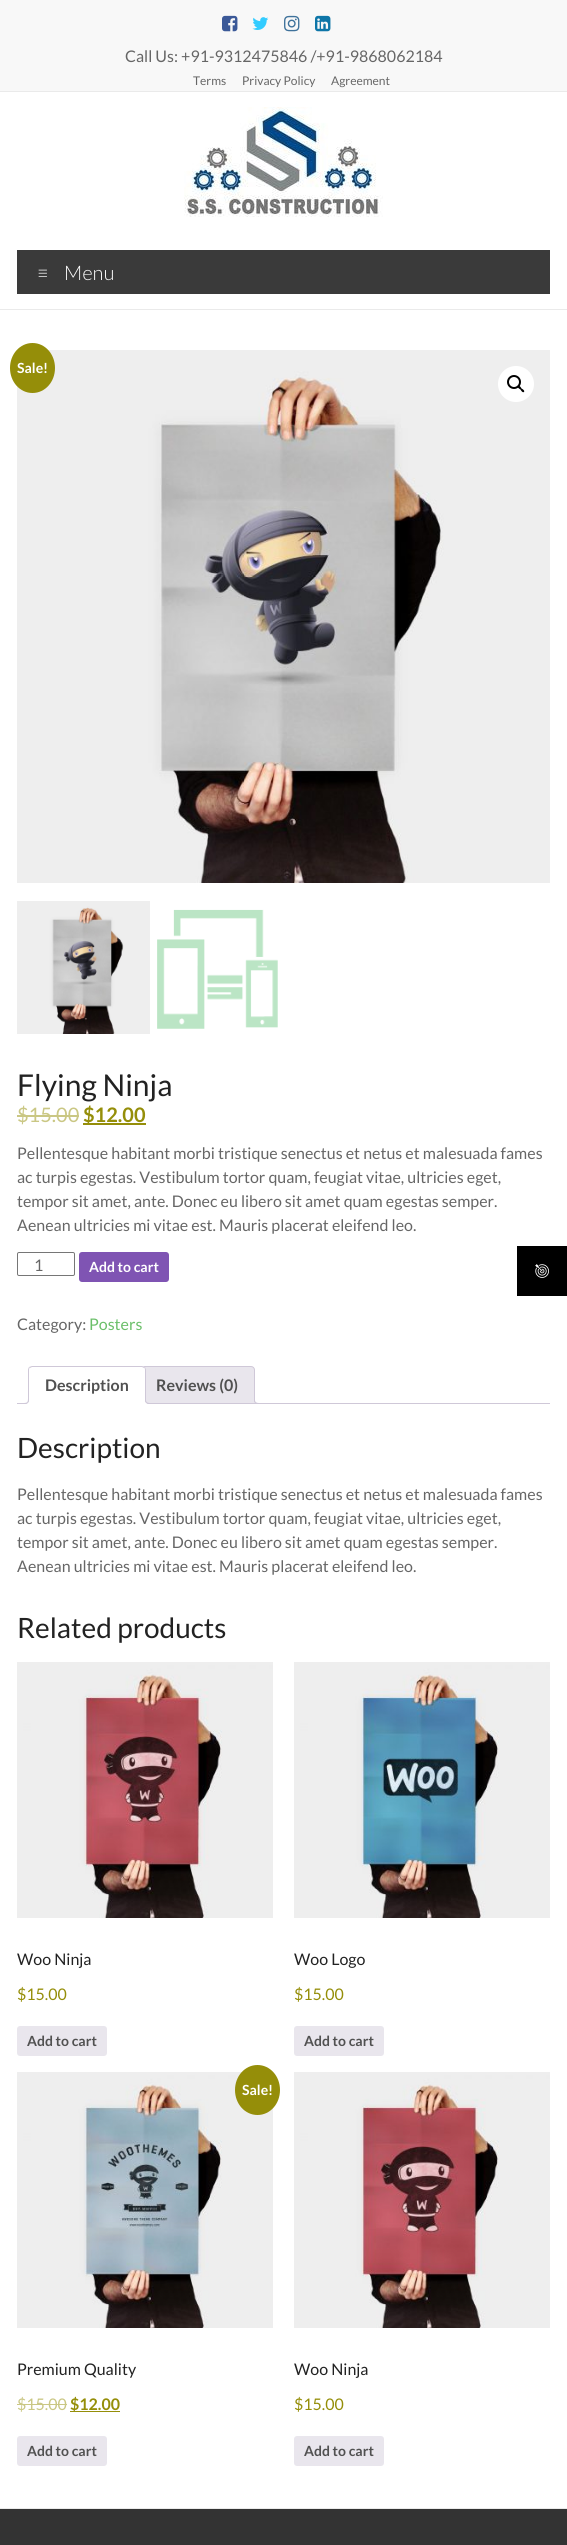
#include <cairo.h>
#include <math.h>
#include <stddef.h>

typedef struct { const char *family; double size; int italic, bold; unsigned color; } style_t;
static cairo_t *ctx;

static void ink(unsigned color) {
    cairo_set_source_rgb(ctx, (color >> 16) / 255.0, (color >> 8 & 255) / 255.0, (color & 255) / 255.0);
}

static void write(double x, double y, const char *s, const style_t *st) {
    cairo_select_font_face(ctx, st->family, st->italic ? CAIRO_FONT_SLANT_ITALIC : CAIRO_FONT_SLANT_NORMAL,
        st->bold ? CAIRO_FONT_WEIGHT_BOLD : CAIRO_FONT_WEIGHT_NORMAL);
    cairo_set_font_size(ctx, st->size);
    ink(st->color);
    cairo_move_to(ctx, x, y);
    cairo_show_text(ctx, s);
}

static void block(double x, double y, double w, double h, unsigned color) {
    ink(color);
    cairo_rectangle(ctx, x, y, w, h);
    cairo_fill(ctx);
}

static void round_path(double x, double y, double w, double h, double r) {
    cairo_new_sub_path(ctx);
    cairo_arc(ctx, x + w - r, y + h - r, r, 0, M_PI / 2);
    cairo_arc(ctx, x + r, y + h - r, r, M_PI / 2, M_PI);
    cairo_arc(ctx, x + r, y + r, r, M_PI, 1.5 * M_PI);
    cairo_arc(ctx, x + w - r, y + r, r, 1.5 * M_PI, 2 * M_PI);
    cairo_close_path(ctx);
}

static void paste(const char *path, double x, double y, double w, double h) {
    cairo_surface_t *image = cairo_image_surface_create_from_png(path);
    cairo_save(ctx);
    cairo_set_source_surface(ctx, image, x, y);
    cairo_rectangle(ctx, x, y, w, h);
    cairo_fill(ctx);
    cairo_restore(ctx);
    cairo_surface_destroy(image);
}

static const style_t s1 = {"Lato", 16, 0, 0, 0x666666};
static const style_t s2 = {"Lato", 12, 0, 0, 0x666666};
static const style_t s3 = {"Lato Light", 20, 0, 0, 0xffffff};
static const style_t s4 = {"Lato", 14, 0, 1, 0xffffff};
static const style_t s5 = {"Lato", 30, 0, 0, 0x222222};
static const style_t s6 = {"Lato", 20, 0, 0, 0xcac784};
static const style_t s7 = {"Lato", 20, 0, 1, 0x958e09};
static const style_t s8 = {"Lato", 16, 0, 0, 0x6bbf6a};
static const style_t s9 = {"Lato", 16, 0, 1, 0x515151};
static const style_t s10 = {"Lato", 28, 0, 0, 0x222222};
static const style_t s11 = {"Lato", 16, 0, 0, 0x222222};
static const style_t s12 = {"Lato", 16, 0, 0, 0x958e09};
static const style_t s13 = {"Lato", 14, 0, 1, 0x515151};
static const style_t s14 = {"Lato", 16, 0, 0, 0xcac784};
static const style_t s15 = {"Lato", 16, 0, 1, 0x958e09};

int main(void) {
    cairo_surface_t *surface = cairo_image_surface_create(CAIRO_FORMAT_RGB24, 567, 2545);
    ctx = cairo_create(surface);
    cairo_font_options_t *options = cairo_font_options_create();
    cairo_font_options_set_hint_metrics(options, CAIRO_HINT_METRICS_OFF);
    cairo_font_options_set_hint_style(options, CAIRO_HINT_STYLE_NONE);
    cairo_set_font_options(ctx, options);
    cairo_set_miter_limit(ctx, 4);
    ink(0xffffff);
    cairo_paint(ctx);
    block(0, 0, 567, 91, 0xf8f8f8);
    block(0, 91, 567, 1, 0xeaeaea);
    paste("pic1.png", 222, 15, 16, 17);
    paste("pic2.png", 252, 17, 17, 13);
    paste("pic3.png", 284, 15, 16, 17);
    paste("pic4.png", 315, 15, 16, 17);
    write(125, 62, "Call Us: +91-9312475846 /+91-9868062184", &s1);
    write(193, 85, "Terms", &s2);
    write(242, 85, "Privacy Policy", &s2);
    write(331, 85, "Agreement", &s2);
    block(0, 309, 567, 1, 0xeaeaea);
    paste("pic5.png", 184, 107, 199, 110);
    block(17, 250, 533, 44, 0x3a3a3a);
    write(37, 280, "≡", &s3);
    write(64, 280, "Menu", &s3);
    paste("pic6.png", 17, 350, 533, 533);
    cairo_arc(ctx, 516, 384, 18, 0, 2 * M_PI);
    cairo_fill(ctx);
    cairo_arc(ctx, 514, 382, 6, 0, 2 * M_PI);
    ink(0x000000);
    cairo_stroke(ctx);
    cairo_new_path(ctx);
    cairo_move_to(ctx, 518, 386);
    cairo_curve_to(ctx, 519.5, 385, 521, 387.5, 521.5, 388.5);
    cairo_curve_to(ctx, 522.5, 389, 525, 390.5, 524, 392);
    cairo_curve_to(ctx, 522.5, 393, 521, 390.5, 520.5, 389.5);
    cairo_curve_to(ctx, 519.5, 389, 517, 387.5, 518, 386);
    cairo_close_path(ctx);
    cairo_fill(ctx);
    paste("pic7.png", 17, 901, 133, 133);
    paste("pic8.png", 157, 909, 121, 120);
    ink(0x958e09);
    cairo_new_path(ctx);
    cairo_move_to(ctx, 32.5, 343);
    cairo_curve_to(ctx, 45, 343, 55, 354, 55, 368);
    cairo_curve_to(ctx, 55, 382, 45, 393, 32.5, 393);
    cairo_curve_to(ctx, 20, 393, 10, 382, 10, 368);
    cairo_curve_to(ctx, 10, 354, 20, 343, 32.5, 343);
    cairo_close_path(ctx);
    cairo_fill(ctx);
    write(17, 373, "Sale!", &s4);
    write(17, 1096, "Flying Ninja", &s5);
    write(17, 1122, "$15.00", &s6);
    block(17, 1115, 62, 2, 0xcac784);
    block(83, 1123, 63, 2, 0x958e09);
    write(83, 1122, "$12.00", &s7);
    write(17, 1159, "Pellentesque habitant morbi tristique senectus et netus et malesuada fames", &s1);
    write(17, 1183, "ac turpis egestas. Vestibulum tortor quam, feugiat vitae, ultricies eget,", &s1);
    write(17, 1207, "tempor sit amet, ante. Donec eu libero sit amet quam egestas semper.", &s1);
    write(17, 1231, "Aenean ultricies mi vitae est. Mauris placerat eleifend leo.", &s1);
    round_path(17.5, 1252.5, 57, 23, 1.5);
    ink(0x767676);
    cairo_set_line_width(ctx, 1);
    cairo_stroke(ctx);
    write(34, 1271, "1", &s1);
    ink(0x7f54b3);
    round_path(79, 1252, 90, 30, 3);
    cairo_fill(ctx);
    write(89, 1272, "Add to cart", &s4);
    write(17, 1330, "Category:", &s1);
    write(89, 1330, "Posters", &s8);
    ink(0xe9e6ed);
    cairo_new_path(ctx);
    cairo_move_to(ctx, 143, 1366.5);
    cairo_line_to(ctx, 251, 1366.5);
    cairo_curve_to(ctx, 253, 1366.5, 254.5, 1368, 254.5, 1370);
    cairo_line_to(ctx, 254.5, 1403.5);
    cairo_line_to(ctx, 139.5, 1403.5);
    cairo_line_to(ctx, 139.5, 1370);
    cairo_curve_to(ctx, 139.5, 1368, 141, 1366.5, 143, 1366.5);
    cairo_close_path(ctx);
    cairo_fill_preserve(ctx);
    ink(0xcfc8d8);
    cairo_stroke(ctx);
    cairo_save(ctx);
    cairo_rectangle(ctx, 17, 1366, 533, 38);
    cairo_clip(ctx);
    ink(0xe9e6ed);
    cairo_new_path(ctx);
    cairo_move_to(ctx, 252, 1401);
    cairo_curve_to(ctx, 252, 1404.5, 253.5, 1406, 257, 1406);
    cairo_line_to(ctx, 257, 1404);
    cairo_curve_to(ctx, 255.5, 1403.5, 254.5, 1402.5, 254, 1401);
    cairo_close_path(ctx);
    cairo_fill(ctx);
    cairo_restore(ctx);
    cairo_set_fill_rule(ctx, CAIRO_FILL_RULE_EVEN_ODD);
    cairo_new_path(ctx);
    cairo_move_to(ctx, 254, 1399);
    cairo_line_to(ctx, 259, 1399);
    cairo_line_to(ctx, 259, 1404);
    cairo_curve_to(ctx, 256.5, 1404, 254, 1403, 254, 1400);
    cairo_close_path(ctx);
    cairo_move_to(ctx, 255, 1399);
    cairo_line_to(ctx, 259, 1399);
    cairo_line_to(ctx, 259, 1403);
    cairo_curve_to(ctx, 257, 1403, 255, 1402.5, 255, 1400);
    cairo_close_path(ctx);
    cairo_fill(ctx);
    block(17, 1403, 533, 1, 0xcfc8d8);
    ink(0xffffff);
    cairo_new_path(ctx);
    cairo_move_to(ctx, 32, 1366);
    cairo_line_to(ctx, 142, 1366);
    cairo_curve_to(ctx, 144, 1366, 146, 1368, 146, 1370);
    cairo_line_to(ctx, 146, 1404);
    cairo_line_to(ctx, 28, 1404);
    cairo_line_to(ctx, 28, 1370);
    cairo_curve_to(ctx, 28, 1368, 30, 1366, 32, 1366);
    cairo_close_path(ctx);
    cairo_fill(ctx);
    ink(0xcfc8d8);
    cairo_set_fill_rule(ctx, CAIRO_FILL_RULE_WINDING);
    cairo_new_path(ctx);
    cairo_move_to(ctx, 32, 1366);
    cairo_line_to(ctx, 29, 1367);
    cairo_line_to(ctx, 30, 1368);
    cairo_line_to(ctx, 32, 1367);
    cairo_line_to(ctx, 142, 1367);
    cairo_line_to(ctx, 144, 1368);
    cairo_line_to(ctx, 145, 1367);
    cairo_line_to(ctx, 142, 1366);
    cairo_close_path(ctx);
    cairo_fill(ctx);
    cairo_new_path(ctx);
    cairo_move_to(ctx, 146, 1404);
    cairo_line_to(ctx, 146, 1370);
    cairo_curve_to(ctx, 146, 1369, 145.5, 1368, 145, 1367);
    cairo_line_to(ctx, 144, 1368);
    cairo_curve_to(ctx, 145, 1368, 145, 1369, 145, 1370);
    cairo_line_to(ctx, 145, 1403);
    cairo_close_path(ctx);
    cairo_fill(ctx);
    ink(0xffffff);
    cairo_new_path(ctx);
    cairo_move_to(ctx, 146, 1404);
    cairo_line_to(ctx, 145, 1403);
    cairo_line_to(ctx, 29, 1403);
    cairo_line_to(ctx, 28, 1404);
    cairo_close_path(ctx);
    cairo_fill(ctx);
    ink(0xcfc8d8);
    cairo_new_path(ctx);
    cairo_move_to(ctx, 28, 1404);
    cairo_line_to(ctx, 29, 1403);
    cairo_line_to(ctx, 29, 1370);
    cairo_curve_to(ctx, 29, 1369, 29, 1368, 30, 1368);
    cairo_line_to(ctx, 29, 1367);
    cairo_curve_to(ctx, 28.5, 1368, 28, 1369, 28, 1370);
    cairo_close_path(ctx);
    cairo_fill(ctx);
    write(45, 1391, "Description", &s9);
    cairo_save(ctx);
    cairo_rectangle(ctx, 17, 1366, 533, 38);
    cairo_clip(ctx);
    ink(0xffffff);
    cairo_new_path(ctx);
    cairo_move_to(ctx, 26, 1404);
    cairo_line_to(ctx, 26, 1406);
    cairo_curve_to(ctx, 29.5, 1406, 31, 1404.5, 31, 1401);
    cairo_line_to(ctx, 29, 1401);
    cairo_curve_to(ctx, 28.5, 1402.5, 27.5, 1403.5, 26, 1404);
    cairo_close_path(ctx);
    cairo_fill(ctx);
    cairo_restore(ctx);
    ink(0xcfc8d8);
    cairo_set_fill_rule(ctx, CAIRO_FILL_RULE_EVEN_ODD);
    cairo_new_path(ctx);
    cairo_move_to(ctx, 24, 1399);
    cairo_line_to(ctx, 29, 1399);
    cairo_curve_to(ctx, 29, 1402.5, 27.5, 1404, 24, 1404);
    cairo_close_path(ctx);
    cairo_move_to(ctx, 24, 1399);
    cairo_line_to(ctx, 28, 1399);
    cairo_curve_to(ctx, 28, 1402, 27, 1403, 24, 1403);
    cairo_close_path(ctx);
    cairo_fill(ctx);
    cairo_save(ctx);
    cairo_set_fill_rule(ctx, CAIRO_FILL_RULE_WINDING);
    cairo_rectangle(ctx, 17, 1366, 533, 38);
    cairo_clip(ctx);
    ink(0xffffff);
    cairo_new_path(ctx);
    cairo_move_to(ctx, 143, 1401);
    cairo_curve_to(ctx, 143, 1404.5, 144.5, 1406, 148, 1406);
    cairo_line_to(ctx, 148, 1404);
    cairo_curve_to(ctx, 146.5, 1403.5, 145.5, 1402.5, 145, 1401);
    cairo_close_path(ctx);
    cairo_fill(ctx);
    cairo_restore(ctx);
    cairo_new_path(ctx);
    cairo_move_to(ctx, 145, 1399);
    cairo_line_to(ctx, 150, 1399);
    cairo_line_to(ctx, 150, 1404);
    cairo_curve_to(ctx, 147.5, 1404, 145, 1403, 145, 1400);
    cairo_close_path(ctx);
    cairo_move_to(ctx, 146, 1399);
    cairo_line_to(ctx, 150, 1399);
    cairo_line_to(ctx, 150, 1403);
    cairo_curve_to(ctx, 148, 1403, 146, 1402.5, 146, 1400);
    cairo_close_path(ctx);
    cairo_fill(ctx);
    write(156, 1391, "Reviews (0)", &s9);
    write(17, 1458, "Description", &s10);
    write(17, 1500, "Pellentesque habitant morbi tristique senectus et netus et malesuada fames", &s1);
    write(17, 1524, "ac turpis egestas. Vestibulum tortor quam, feugiat vitae, ultricies eget,", &s1);
    write(17, 1548, "tempor sit amet, ante. Donec eu libero sit amet quam egestas semper.", &s1);
    write(17, 1572, "Aenean ultricies mi vitae est. Mauris placerat eleifend leo.", &s1);
    write(17, 1638, "Related products", &s10);
    paste("pic9.png", 17, 1662, 256, 256);
    write(17, 1965, "Woo Ninja", &s11);
    write(17, 2000, "$15.00", &s12);
    ink(0xe9e6ed);
    round_path(17, 2026, 90, 30, 3);
    cairo_fill(ctx);
    write(27, 2046, "Add to cart", &s13);
    paste("pic10.png", 294, 1662, 256, 256);
    write(294, 1965, "Woo Logo", &s11);
    write(294, 2000, "$15.00", &s12);
    ink(0xe9e6ed);
    round_path(294, 2026, 90, 30, 3);
    cairo_fill(ctx);
    write(304, 2046, "Add to cart", &s13);
    paste("pic11.png", 17, 2072, 256, 256);
    ink(0x958e09);
    cairo_new_path(ctx);
    cairo_move_to(ctx, 257.5, 2065);
    cairo_curve_to(ctx, 270, 2065, 280, 2076, 280, 2090);
    cairo_curve_to(ctx, 280, 2104, 270, 2115, 257.5, 2115);
    cairo_curve_to(ctx, 245, 2115, 235, 2104, 235, 2090);
    cairo_curve_to(ctx, 235, 2076, 245, 2065, 257.5, 2065);
    cairo_close_path(ctx);
    cairo_fill(ctx);
    write(242, 2095, "Sale!", &s4);
    write(17, 2375, "Premium Quality", &s11);
    write(17, 2410, "$15.00", &s14);
    block(17, 2404, 50, 1, 0xcac784);
    block(70, 2411, 50, 1, 0x958e09);
    write(70, 2410, "$12.00", &s15);
    ink(0xe9e6ed);
    round_path(17, 2436, 90, 30, 3);
    cairo_fill(ctx);
    write(27, 2456, "Add to cart", &s13);
    paste("pic9.png", 294, 2072, 256, 256);
    write(294, 2375, "Woo Ninja", &s11);
    write(294, 2410, "$15.00", &s12);
    ink(0xe9e6ed);
    round_path(294, 2436, 90, 30, 3);
    cairo_fill(ctx);
    write(304, 2456, "Add to cart", &s13);
    block(0, 2509, 567, 36, 0x333333);
    block(0, 2508, 567, 1, 0xeaeaea);
    block(517, 1246, 50, 50, 0x000000);
    paste("pic12.png", 535, 1264, 14, 14);
    cairo_surface_write_to_png(surface, "screenshot.png");
    cairo_font_options_destroy(options);
    cairo_destroy(ctx);
    cairo_surface_destroy(surface);
    return 0;
}
